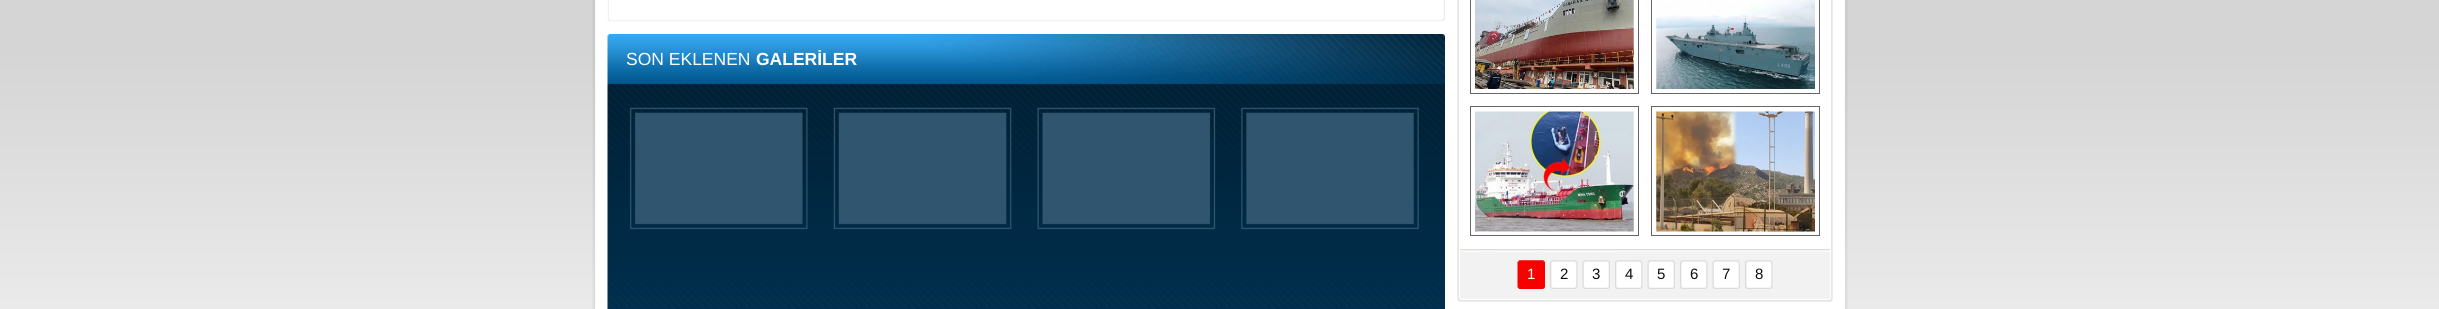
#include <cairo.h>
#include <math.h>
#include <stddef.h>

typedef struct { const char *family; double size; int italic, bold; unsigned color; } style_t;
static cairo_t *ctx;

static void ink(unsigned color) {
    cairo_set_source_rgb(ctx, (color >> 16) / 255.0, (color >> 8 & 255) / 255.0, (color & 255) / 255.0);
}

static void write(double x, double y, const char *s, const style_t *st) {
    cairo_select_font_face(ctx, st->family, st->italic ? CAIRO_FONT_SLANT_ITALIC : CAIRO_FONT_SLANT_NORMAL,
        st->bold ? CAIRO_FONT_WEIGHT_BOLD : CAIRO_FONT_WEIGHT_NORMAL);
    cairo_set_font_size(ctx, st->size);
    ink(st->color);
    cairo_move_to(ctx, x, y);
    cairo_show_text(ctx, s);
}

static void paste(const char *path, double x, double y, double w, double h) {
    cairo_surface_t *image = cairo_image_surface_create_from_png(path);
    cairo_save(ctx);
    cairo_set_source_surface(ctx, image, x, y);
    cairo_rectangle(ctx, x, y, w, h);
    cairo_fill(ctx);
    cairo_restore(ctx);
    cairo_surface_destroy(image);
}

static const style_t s1 = {"Liberation Sans", 17.5, 0, 0, 0xffffff};
static const style_t s2 = {"Liberation Sans", 17.5, 0, 1, 0xffffff};
static const style_t s3 = {"Liberation Sans", 15, 0, 0, 0xffffff};
static const style_t s4 = {"Liberation Sans", 15, 0, 0, 0x0f0f0f};

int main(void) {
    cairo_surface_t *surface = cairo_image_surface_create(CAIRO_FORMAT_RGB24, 2439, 309);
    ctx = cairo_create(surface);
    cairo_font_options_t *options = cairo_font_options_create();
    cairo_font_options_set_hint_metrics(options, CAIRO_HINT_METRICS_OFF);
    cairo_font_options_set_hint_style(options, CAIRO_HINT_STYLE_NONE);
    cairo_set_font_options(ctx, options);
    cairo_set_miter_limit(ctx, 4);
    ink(0xffffff);
    cairo_paint(ctx);
    paste("pic1.png", 0, 0, 2439, 309);
    paste("pic2.png", 592, 0, 1256, 309);
    paste("pic3.png", 607, 0, 838, 19);
    paste("pic4.png", 607, 19, 838, 3);
    paste("pic5.png", 607, 34, 838, 275);
    write(626, 65, "SON EKLENEN", &s1);
    write(756, 65, "GALERİLER", &s2);
    paste("pic6.png", 1457, 0, 376, 299);
    cairo_rectangle(ctx, 1470.5, -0.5, 168, 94);
    ink(0x656565);
    cairo_set_line_width(ctx, 1);
    cairo_stroke(ctx);
    paste("pic7.png", 1475, 0, 159, 89);
    cairo_rectangle(ctx, 1651.5, -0.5, 168, 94);
    cairo_stroke(ctx);
    paste("pic8.png", 1656, 0, 159, 89);
    cairo_rectangle(ctx, 1470.5, 106.5, 168, 129);
    cairo_stroke(ctx);
    paste("pic9.png", 1475, 111, 159, 121);
    cairo_rectangle(ctx, 1651.5, 106.5, 168, 129);
    cairo_stroke(ctx);
    paste("pic10.png", 1656, 111, 159, 121);
    paste("pic11.png", 1460, 249, 370, 50);
    paste("pic12.png", 1517, 260, 28, 29);
    write(1527, 279, "1", &s3);
    paste("pic13.png", 1550, 260, 28, 29);
    write(1560, 279, "2", &s4);
    paste("pic14.png", 1582, 260, 28, 29);
    write(1592, 279, "3", &s4);
    paste("pic15.png", 1615, 260, 28, 29);
    write(1625, 279, "4", &s4);
    paste("pic16.png", 1647, 260, 28, 29);
    write(1657, 279, "5", &s4);
    paste("pic15.png", 1680, 260, 28, 29);
    write(1690, 279, "6", &s4);
    paste("pic14.png", 1712, 260, 28, 29);
    write(1722, 279, "7", &s4);
    paste("pic13.png", 1745, 260, 28, 29);
    write(1755, 279, "8", &s4);
    paste("pic17.png", 1457, 299, 376, 3);
    cairo_surface_write_to_png(surface, "screenshot.png");
    cairo_font_options_destroy(options);
    cairo_destroy(ctx);
    cairo_surface_destroy(surface);
    return 0;
}
